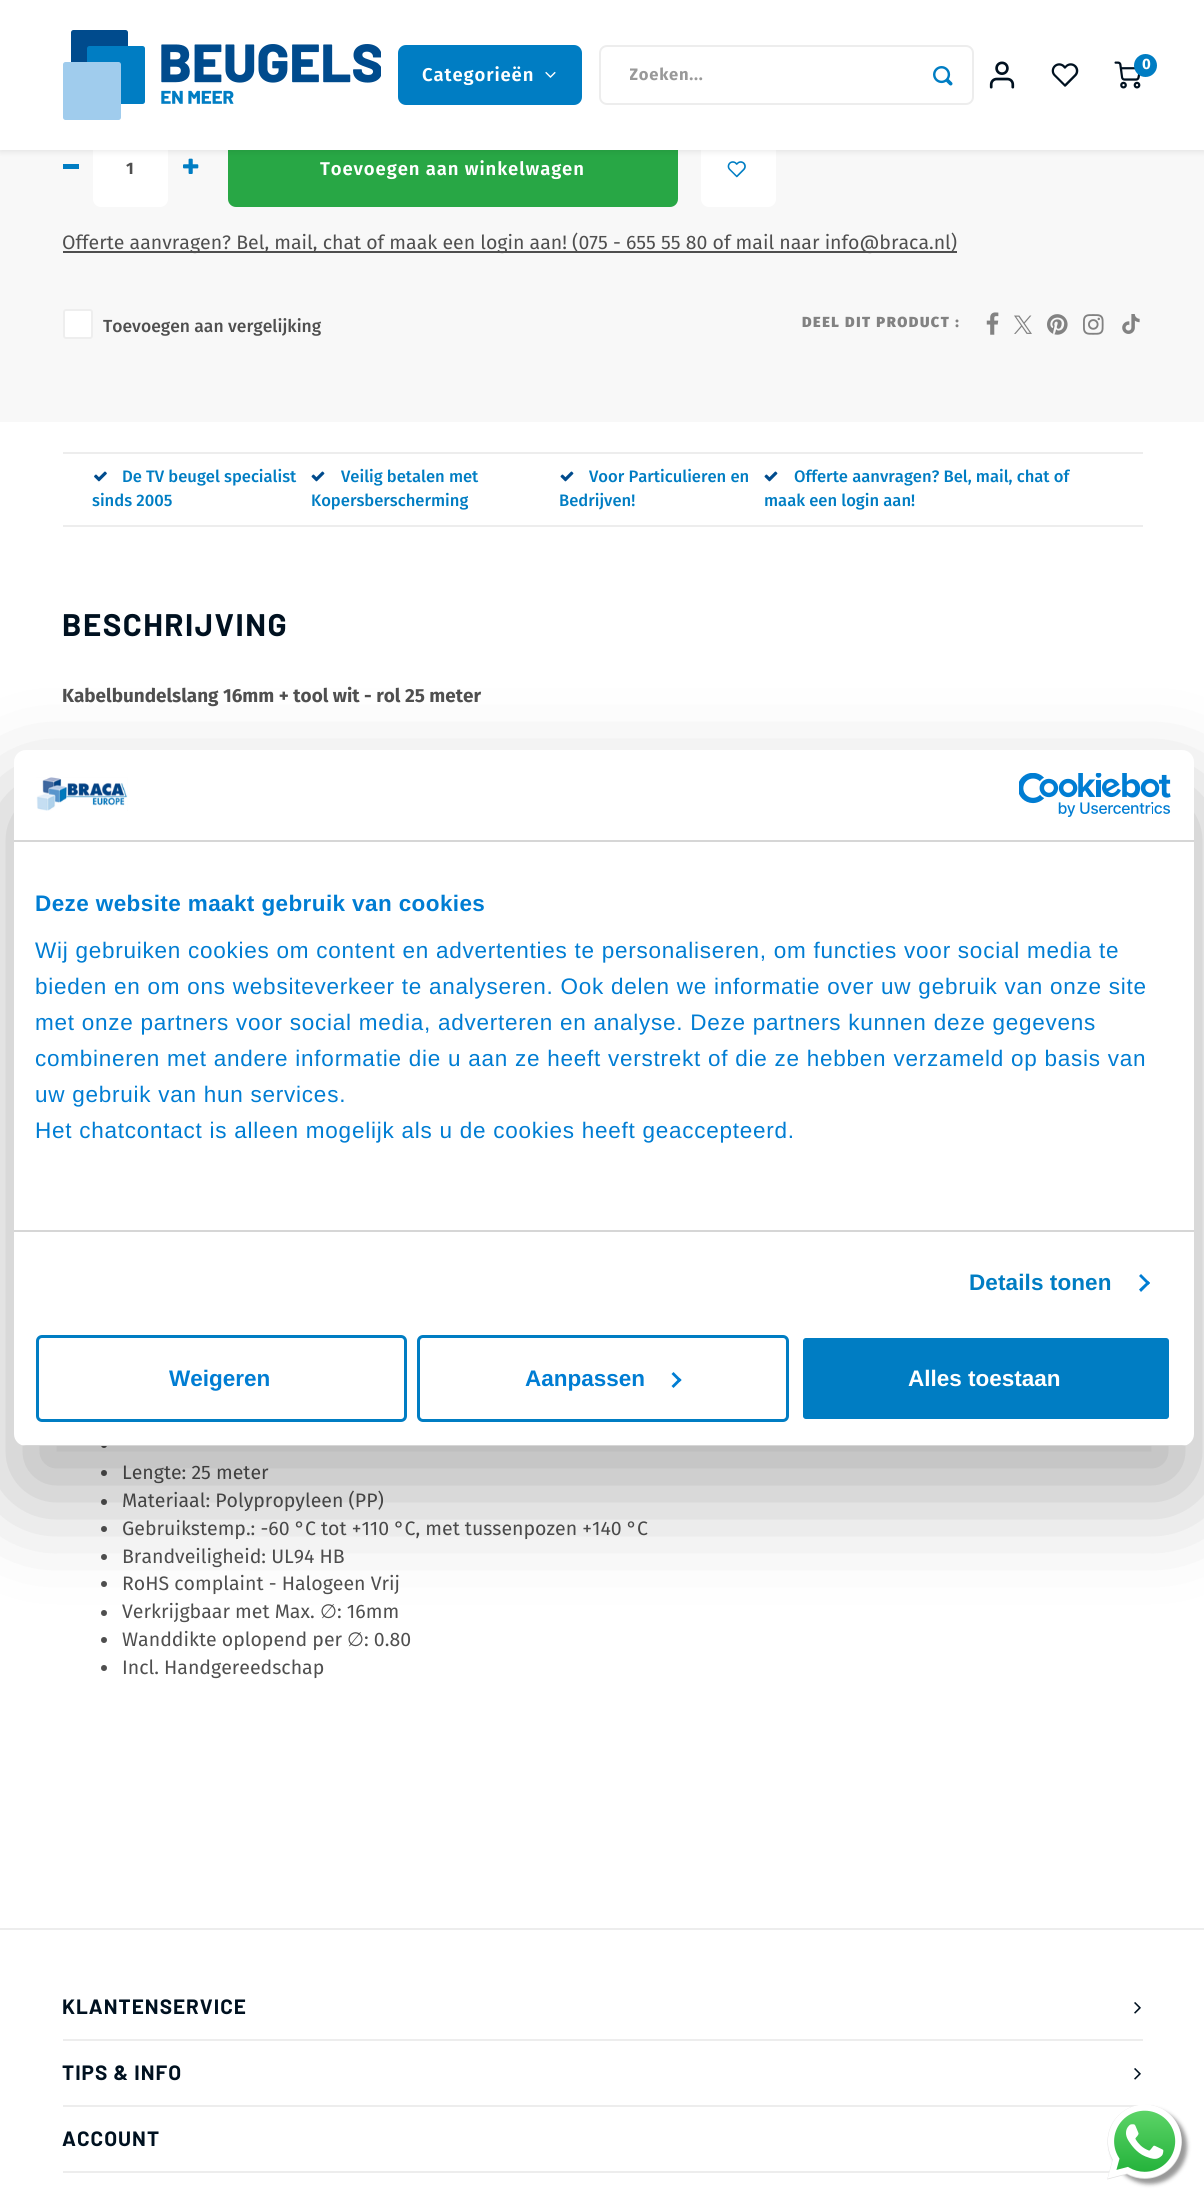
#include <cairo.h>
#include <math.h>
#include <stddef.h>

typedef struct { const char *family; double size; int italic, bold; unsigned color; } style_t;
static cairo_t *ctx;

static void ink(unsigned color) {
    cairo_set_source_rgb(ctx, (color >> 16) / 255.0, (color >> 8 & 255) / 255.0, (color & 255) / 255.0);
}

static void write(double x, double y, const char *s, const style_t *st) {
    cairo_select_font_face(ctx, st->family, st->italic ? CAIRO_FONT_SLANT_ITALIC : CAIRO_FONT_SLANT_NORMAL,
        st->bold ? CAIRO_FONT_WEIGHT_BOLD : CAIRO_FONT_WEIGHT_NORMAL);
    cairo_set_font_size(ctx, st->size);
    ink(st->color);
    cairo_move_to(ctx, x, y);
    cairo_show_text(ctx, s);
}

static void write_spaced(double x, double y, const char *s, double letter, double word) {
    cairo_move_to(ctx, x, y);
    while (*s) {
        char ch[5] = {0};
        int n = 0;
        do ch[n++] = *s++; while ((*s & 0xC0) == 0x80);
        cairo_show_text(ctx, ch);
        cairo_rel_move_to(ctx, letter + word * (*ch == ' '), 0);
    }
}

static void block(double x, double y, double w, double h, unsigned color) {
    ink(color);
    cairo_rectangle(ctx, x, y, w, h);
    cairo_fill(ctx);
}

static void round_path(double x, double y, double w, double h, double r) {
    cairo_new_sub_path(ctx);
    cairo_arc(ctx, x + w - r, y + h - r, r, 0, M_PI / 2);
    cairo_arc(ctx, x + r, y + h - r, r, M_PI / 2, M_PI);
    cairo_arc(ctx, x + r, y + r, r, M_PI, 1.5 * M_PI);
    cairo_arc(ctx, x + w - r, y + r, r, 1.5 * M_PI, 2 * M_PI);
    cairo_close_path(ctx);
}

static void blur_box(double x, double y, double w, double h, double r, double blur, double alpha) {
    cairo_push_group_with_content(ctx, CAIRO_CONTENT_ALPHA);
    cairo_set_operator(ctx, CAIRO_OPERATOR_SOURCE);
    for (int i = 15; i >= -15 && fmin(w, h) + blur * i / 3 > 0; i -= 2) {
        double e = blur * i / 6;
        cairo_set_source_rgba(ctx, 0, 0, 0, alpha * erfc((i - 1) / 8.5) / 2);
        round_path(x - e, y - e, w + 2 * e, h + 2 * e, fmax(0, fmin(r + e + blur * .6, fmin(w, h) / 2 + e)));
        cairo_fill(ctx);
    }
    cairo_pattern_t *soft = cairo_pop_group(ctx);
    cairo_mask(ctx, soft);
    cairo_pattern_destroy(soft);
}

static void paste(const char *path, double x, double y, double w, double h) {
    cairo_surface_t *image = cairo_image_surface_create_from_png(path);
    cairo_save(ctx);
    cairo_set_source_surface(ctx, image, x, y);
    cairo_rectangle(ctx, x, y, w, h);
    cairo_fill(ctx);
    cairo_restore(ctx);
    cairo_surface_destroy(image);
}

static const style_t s1 = {"Fira Sans", 15, 0, 1, 0xffffff};
static const style_t s2 = {"Fira Sans", 19.5, 0, 0, 0x4f4f4f};
static const style_t s3 = {"Fira Sans Medium", 17.5, 0, 0, 0x4f4f4f};
static const style_t s4 = {"Fira Sans Medium", 16.6, 0, 0, 0x007dc3};
static const style_t s5 = {"Fira Sans", 18.9, 0, 1, 0x4f4f4f};
static const style_t s6 = {"DejaVu Sans", 19.5, 0, 0, 0x4f4f4f};
static const style_t s7 = {"Liberation Sans", 22.5, 0, 1, 0x007dd3};
static const style_t s8 = {"Liberation Sans", 22.5, 0, 1, 0xffffff};

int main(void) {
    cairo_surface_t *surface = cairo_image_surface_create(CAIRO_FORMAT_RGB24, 1204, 2194);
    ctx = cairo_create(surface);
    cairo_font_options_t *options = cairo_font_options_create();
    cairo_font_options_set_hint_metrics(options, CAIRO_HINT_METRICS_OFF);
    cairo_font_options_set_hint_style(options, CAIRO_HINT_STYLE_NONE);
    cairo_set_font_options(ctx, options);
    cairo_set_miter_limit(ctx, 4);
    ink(0xffffff);
    cairo_paint(ctx);
    block(0, 150, 1204, 272, 0xf8f8f8);
    ink(0xffffff);
    round_path(93, 132, 75, 75, 8);
    cairo_fill(ctx);
    paste("pic7.png", 183, 158, 16, 16);
    ink(0x28a745);
    round_path(228, 132, 450, 75, 8);
    cairo_fill(ctx);
    ink(0xffffff);
    round_path(701, 132, 75, 75, 8);
    cairo_fill(ctx);
    paste("pic8.png", 727, 161, 19, 17);
    ink(0x000000);
    blur_box(0, 2, 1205, 150, 0, 3, 0.08);
    block(0, 0, 1204, 150, 0xffffff);
    paste("pic1.png", 63, 30, 318, 90);
    paste("pic2.png", 989, 61, 26, 28);
    paste("pic3.png", 1051, 63, 28, 24);
    paste("pic4.png", 1114, 61, 27, 28);
    ink(0x007dc3);
    cairo_arc(ctx, 1145.5, 65.5, 11.5, 0, 2 * M_PI);
    cairo_fill(ctx);
    write(1142, 69, "0", &s1);
    ink(0x007dc3);
    round_path(398, 45, 184, 60, 8);
    cairo_fill(ctx);
    cairo_select_font_face(ctx, "Fira Sans SemiBold", CAIRO_FONT_SLANT_NORMAL, CAIRO_FONT_WEIGHT_NORMAL);
    cairo_set_font_size(ctx, 18.5);
    ink(0xffffff);
    write_spaced(422, 81, "Categorieën", 0.9, 0);
    paste("pic5.png", 545, 71, 11, 7);
    round_path(600, 46, 373, 58, 7);
    ink(0xededed);
    cairo_stroke(ctx);
    cairo_save(ctx);
    cairo_rectangle(ctx, 630, 66, 282, 20);
    cairo_clip(ctx);
    cairo_select_font_face(ctx, "Fira Sans", CAIRO_FONT_SLANT_NORMAL, CAIRO_FONT_WEIGHT_BOLD);
    cairo_set_font_size(ctx, 16.6);
    ink(0x999999);
    write_spaced(629, 80, "Zoeken...", 0.75, 0);
    cairo_restore(ctx);
    paste("pic6.png", 933, 66, 20, 20);
    block(63, 164, 16, 5, 0x007dc3);
    cairo_select_font_face(ctx, "Fira Sans", CAIRO_FONT_SLANT_NORMAL, CAIRO_FONT_WEIGHT_BOLD);
    cairo_set_font_size(ctx, 16.6);
    ink(0x4f4f4f);
    write_spaced(126, 174, "1", 0.75, 0);
    cairo_select_font_face(ctx, "Fira Sans SemiBold", CAIRO_FONT_SLANT_NORMAL, CAIRO_FONT_WEIGHT_NORMAL);
    cairo_set_font_size(ctx, 18.5);
    ink(0xffffff);
    write_spaced(320, 175, "Toevoegen aan winkelwagen", 0.9, 0);
    block(63, 251, 894, 2, 0x4f4f4f);
    write(62, 249, "Offerte aanvragen? Bel, mail, chat of maak een login aan! (075 - 655 55 80 of mail naar info@braca.nl)", &s2);
    ink(0xffffff);
    round_path(63, 309, 30, 30, 3);
    cairo_fill(ctx);
    round_path(64, 310, 28, 28, 2);
    cairo_set_source_rgba(ctx, 0, 0, 0, 0.07);
    cairo_stroke(ctx);
    write(103, 332, "Toevoegen aan vergelijking", &s3);
    cairo_select_font_face(ctx, "Fira Sans Black", CAIRO_FONT_SLANT_NORMAL, CAIRO_FONT_WEIGHT_NORMAL);
    cairo_set_font_size(ctx, 14.6);
    ink(0x828282);
    write_spaced(802, 327, "DEEL DIT PRODUCT :", 1.5, 0);
    paste("pic9.png", 986, 312, 13, 23);
    paste("pic10.png", 1014, 315, 18, 19);
    paste("pic11.png", 1047, 314, 21, 21);
    paste("pic12.png", 1083, 314, 21, 21);
    paste("pic13.png", 1122, 314, 18, 20);
    block(63, 452, 1080, 2, 0xededed);
    block(63, 525, 1080, 2, 0xededed);
    paste("pic14.png", 94, 471, 13, 11);
    write(122, 482, "De TV beugel specialist", &s4);
    write(92, 506, "sinds 2005", &s4);
    paste("pic15.png", 311, 471, 14, 11);
    write(341, 482, "Veilig betalen met", &s4);
    write(311, 506, "Kopersberscherming", &s4);
    paste("pic15.png", 560, 471, 14, 11);
    write(589, 482, "Voor Particulieren en", &s4);
    write(559, 506, "Bedrijven!", &s4);
    paste("pic15.png", 764, 471, 14, 11);
    write(794, 482, "Offerte aanvragen? Bel, mail, chat of", &s4);
    write(764, 506, "maak een login aan!", &s4);
    cairo_select_font_face(ctx, "Barlow", CAIRO_FONT_SLANT_NORMAL, CAIRO_FONT_WEIGHT_BOLD);
    cairo_set_font_size(ctx, 31.25);
    ink(0x001120);
    write_spaced(62, 636, "BESCHRIJVING", 1.5, 0);
    write(62, 702, "Kabelbundelslang 16mm + tool wit - rol 25 meter", &s5);
    cairo_new_path(ctx);
    cairo_arc(ctx, 104, 1445, 3, 0, 2 * M_PI);
    cairo_fill(ctx);
    cairo_arc(ctx, 104, 1473, 3, 0, 2 * M_PI);
    cairo_fill(ctx);
    write(122, 1479, "Lengte: 25 meter", &s2);
    cairo_new_path(ctx);
    cairo_arc(ctx, 104, 1502, 3, 0, 2 * M_PI);
    cairo_fill(ctx);
    write(122, 1507, "Materiaal: Polypropyleen (PP)", &s2);
    cairo_new_path(ctx);
    cairo_arc(ctx, 104, 1529, 3, 0, 2 * M_PI);
    cairo_fill(ctx);
    write(122, 1535, "Gebruikstemp.: -60 °C tot +110 °C, met tussenpozen +140 °C", &s2);
    cairo_new_path(ctx);
    cairo_arc(ctx, 104, 1557, 3, 0, 2 * M_PI);
    cairo_fill(ctx);
    write(122, 1563, "Brandveiligheid: UL94 HB", &s2);
    cairo_new_path(ctx);
    cairo_arc(ctx, 104, 1584, 3, 0, 2 * M_PI);
    cairo_fill(ctx);
    write(122, 1590, "RoHS complaint - Halogeen Vrij", &s2);
    cairo_new_path(ctx);
    cairo_arc(ctx, 104, 1613, 3, 0, 2 * M_PI);
    cairo_fill(ctx);
    write(122, 1618, "Verkrijgbaar met Max.", &s2);
    write(320, 1618, "∅", &s6);
    write(337, 1618, ": 16mm", &s2);
    cairo_new_path(ctx);
    cairo_arc(ctx, 104, 1640, 3, 0, 2 * M_PI);
    cairo_fill(ctx);
    write(122, 1646, "Wanddikte oplopend per", &s2);
    write(347, 1646, "∅", &s6);
    write(364, 1646, ": 0.80", &s2);
    cairo_new_path(ctx);
    cairo_arc(ctx, 104, 1668, 3, 0, 2 * M_PI);
    cairo_fill(ctx);
    write(122, 1674, "Incl. Handgereedschap", &s2);
    ink(0x000000);
    blur_box(14, 798, 1180, 696, 12, 51, 0.3);
    ink(0xffffff);
    round_path(14, 750, 1180, 696, 12);
    cairo_fill(ctx);
    block(14, 840, 1180, 2, 0xd6d6d6);
    paste("pic16.png", 36, 777, 92, 34);
    paste("pic17.png", 1019, 773, 152, 44);
    block(14, 1230, 1180, 2, 0xd6d6d6);
    cairo_select_font_face(ctx, "Liberation Sans", CAIRO_FONT_SLANT_NORMAL, CAIRO_FONT_WEIGHT_BOLD);
    cairo_set_font_size(ctx, 22.5);
    ink(0x007dd3);
    write_spaced(35, 911, "Deze website maakt gebruik van cookies", 0.4, 0);
    cairo_select_font_face(ctx, "Liberation Sans", CAIRO_FONT_SLANT_NORMAL, CAIRO_FONT_WEIGHT_NORMAL);
    write_spaced(35, 958, "Wij gebruiken cookies om content en advertenties te personaliseren, om functies voor social media te", 0.75, 0);
    write_spaced(35, 994, "bieden en om ons websiteverkeer te analyseren. Ook delen we informatie over uw gebruik van onze site", 0.75, 0);
    write_spaced(35, 1030, "met onze partners voor social media, adverteren en analyse. Deze partners kunnen deze gegevens", 0.75, 0);
    write_spaced(35, 1066, "combineren met andere informatie die u aan ze heeft verstrekt of die ze hebben verzameld op basis van", 0.75, 0);
    write_spaced(35, 1102, "uw gebruik van hun services.", 0.75, 0);
    write_spaced(35, 1138, "Het chatcontact is alleen mogelijk als u de cookies heeft geaccepteerd.", 0.75, 0);
    cairo_select_font_face(ctx, "Liberation Sans", CAIRO_FONT_SLANT_NORMAL, CAIRO_FONT_WEIGHT_BOLD);
    ink(0x007dc3);
    write_spaced(969, 1290, "Details tonen", 0.1, 0);
    ink(0x007dd3);
    cairo_new_path(ctx);
    cairo_move_to(ctx, 1141, 1274);
    cairo_line_to(ctx, 1150, 1283);
    cairo_line_to(ctx, 1148, 1285);
    cairo_line_to(ctx, 1139, 1276);
    cairo_close_path(ctx);
    cairo_fill(ctx);
    cairo_new_path(ctx);
    cairo_move_to(ctx, 1148, 1281);
    cairo_line_to(ctx, 1150, 1283);
    cairo_line_to(ctx, 1141, 1292);
    cairo_line_to(ctx, 1139, 1289.5);
    cairo_close_path(ctx);
    cairo_fill(ctx);
    cairo_save(ctx);
    round_path(14, 750, 1180, 696, 12);
    cairo_clip(ctx);
    block(14, 1445, 1180, 1, 0xd6d6d6);
    cairo_restore(ctx);
    round_path(37.5, 1336.5, 368, 84, 4.5);
    ink(0x007dc3);
    cairo_set_line_width(ctx, 3);
    cairo_stroke(ctx);
    write(169, 1386, "Weigeren", &s7);
    round_path(418.5, 1336.5, 369, 84, 4.5);
    ink(0x007dc3);
    cairo_stroke(ctx);
    write(525, 1386, "Aanpassen", &s7);
    cairo_new_path(ctx);
    cairo_move_to(ctx, 673.5, 1372);
    cairo_line_to(ctx, 681.5, 1380);
    cairo_line_to(ctx, 679.5, 1382);
    cairo_line_to(ctx, 671.5, 1374);
    cairo_close_path(ctx);
    cairo_fill(ctx);
    cairo_new_path(ctx);
    cairo_move_to(ctx, 679.5, 1378);
    cairo_line_to(ctx, 681.5, 1380);
    cairo_line_to(ctx, 673.5, 1388);
    cairo_line_to(ctx, 671.5, 1386);
    cairo_close_path(ctx);
    cairo_fill(ctx);
    ink(0x007dc3);
    round_path(801.5, 1336.5, 369, 84, 4.5);
    cairo_fill_preserve(ctx);
    ink(0xffffff);
    cairo_stroke(ctx);
    write(908, 1386, "Alles toestaan", &s8);
    block(0, 1928, 1204, 2, 0xededed);
    block(63, 2039, 1080, 2, 0xededed);
    cairo_select_font_face(ctx, "Barlow", CAIRO_FONT_SLANT_NORMAL, CAIRO_FONT_WEIGHT_BOLD);
    cairo_set_font_size(ctx, 20.75);
    ink(0x001120);
    write_spaced(62, 2014, "KLANTENSERVICE", 1, 0);
    paste("pic18.png", 1134, 2002, 7, 12);
    block(63, 2105, 1080, 2, 0xededed);
    ink(0x001120);
    write_spaced(62, 2080, "TIPS & INFO", 1, 0);
    paste("pic18.png", 1134, 2068, 7, 12);
    block(63, 2171, 1047, 2, 0xededed);
    ink(0x001120);
    write_spaced(62, 2146, "ACCOUNT", 1, 0);
    ink(0x999999);
    blur_box(1112, 2109, 75, 75, 37.5, 2, 1);
    paste("pic19.png", 1107, 2105, 75, 75);
    cairo_surface_write_to_png(surface, "screenshot.png");
    cairo_font_options_destroy(options);
    cairo_destroy(ctx);
    cairo_surface_destroy(surface);
    return 0;
}
